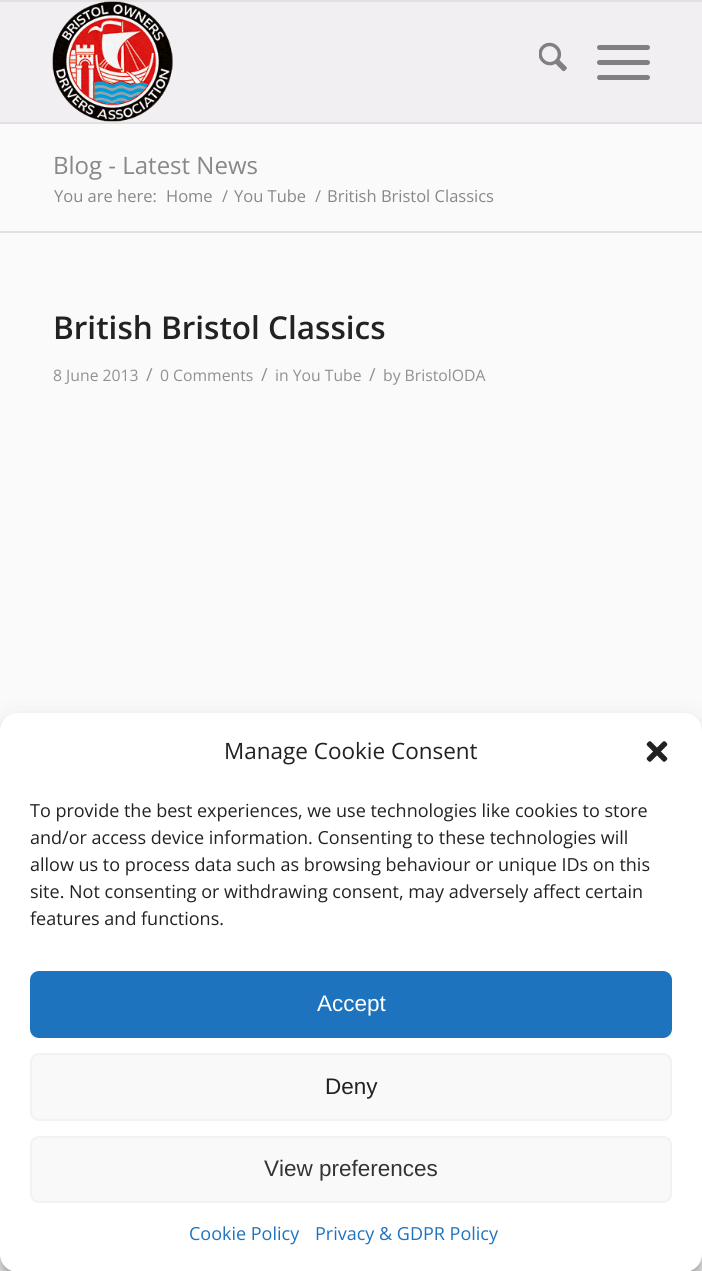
#include <cairo.h>
#include <math.h>
#include <stddef.h>

typedef struct { const char *family; double size; int italic, bold; unsigned color; } style_t;
static cairo_t *ctx;

static void ink(unsigned color) {
    cairo_set_source_rgb(ctx, (color >> 16) / 255.0, (color >> 8 & 255) / 255.0, (color & 255) / 255.0);
}

static void write(double x, double y, const char *s, const style_t *st) {
    cairo_select_font_face(ctx, st->family, st->italic ? CAIRO_FONT_SLANT_ITALIC : CAIRO_FONT_SLANT_NORMAL,
        st->bold ? CAIRO_FONT_WEIGHT_BOLD : CAIRO_FONT_WEIGHT_NORMAL);
    cairo_set_font_size(ctx, st->size);
    ink(st->color);
    cairo_move_to(ctx, x, y);
    cairo_show_text(ctx, s);
}

static void block(double x, double y, double w, double h, unsigned color) {
    ink(color);
    cairo_rectangle(ctx, x, y, w, h);
    cairo_fill(ctx);
}

static void round_path(double x, double y, double w, double h, double r) {
    cairo_new_sub_path(ctx);
    cairo_arc(ctx, x + w - r, y + h - r, r, 0, M_PI / 2);
    cairo_arc(ctx, x + r, y + h - r, r, M_PI / 2, M_PI);
    cairo_arc(ctx, x + r, y + r, r, M_PI, 1.5 * M_PI);
    cairo_arc(ctx, x + w - r, y + r, r, 1.5 * M_PI, 2 * M_PI);
    cairo_close_path(ctx);
}

static void blur_box(double x, double y, double w, double h, double r, double blur, double alpha) {
    cairo_push_group_with_content(ctx, CAIRO_CONTENT_ALPHA);
    cairo_set_operator(ctx, CAIRO_OPERATOR_SOURCE);
    for (int i = 15; i >= -15 && fmin(w, h) + blur * i / 3 > 0; i -= 2) {
        double e = blur * i / 6;
        cairo_set_source_rgba(ctx, 0, 0, 0, alpha * erfc((i - 1) / 8.5) / 2);
        round_path(x - e, y - e, w + 2 * e, h + 2 * e, fmax(0, fmin(r + e + blur * .6, fmin(w, h) / 2 + e)));
        cairo_fill(ctx);
    }
    cairo_pattern_t *soft = cairo_pop_group(ctx);
    cairo_mask(ctx, soft);
    cairo_pattern_destroy(soft);
}

static void paste(const char *path, double x, double y, double w, double h) {
    cairo_surface_t *image = cairo_image_surface_create_from_png(path);
    cairo_save(ctx);
    cairo_set_source_surface(ctx, image, x, y);
    cairo_rectangle(ctx, x, y, w, h);
    cairo_fill(ctx);
    cairo_restore(ctx);
    cairo_surface_destroy(image);
}

static const style_t s1 = {"Open Sans", 24, 0, 0, 0x888888};
static const style_t s2 = {"Open Sans", 16.5, 0, 0, 0x888888};
static const style_t s3 = {"Open Sans SemiBold", 31.5, 0, 0, 0x222222};
static const style_t s4 = {"Open Sans", 15.75, 0, 0, 0x919191};
static const style_t s5 = {"Open Sans", 18, 0, 0, 0x919191};
static const style_t s6 = {"Open Sans", 22.5, 0, 0, 0x222222};
static const style_t s7 = {"Open Sans", 18, 0, 0, 0x222222};
static const style_t s8 = {"Liberation Sans", 22.5, 0, 0, 0xffffff};
static const style_t s9 = {"Liberation Sans", 22.5, 0, 0, 0x222222};
static const style_t s10 = {"Liberation Sans", 22.5, 0, 0, 0x333333};
static const style_t s11 = {"Open Sans", 18, 0, 0, 0x1e73be};

int main(void) {
    cairo_surface_t *surface = cairo_image_surface_create(CAIRO_FORMAT_RGB24, 702, 1271);
    ctx = cairo_create(surface);
    cairo_font_options_t *options = cairo_font_options_create();
    cairo_font_options_set_hint_metrics(options, CAIRO_HINT_METRICS_OFF);
    cairo_font_options_set_hint_style(options, CAIRO_HINT_STYLE_NONE);
    cairo_set_font_options(ctx, options);
    cairo_set_miter_limit(ctx, 4);
    ink(0xfafafa);
    cairo_paint(ctx);
    block(0, 0, 702, 2, 0xe1e1e1);
    block(0, 122, 702, 2, 0xe1e1e1);
    block(0, 2, 702, 120, 0xf2eff2);
    paste("pic1.png", 52, 1, 121, 121);
    paste("pic2.png", 539, 42, 28, 30);
    ink(0x808080);
    round_path(597, 60, 53, 5, 2.5);
    cairo_fill(ctx);
    round_path(597, 45, 53, 5, 2.5);
    cairo_fill(ctx);
    round_path(597, 75, 53, 5, 2.5);
    cairo_fill(ctx);
    write(53, 174, "Blog - Latest News", &s1);
    write(54, 202, "You are here:", &s2);
    write(166, 202, "Home", &s2);
    write(222, 202, "/", &s2);
    write(234, 202, "You Tube", &s2);
    write(315, 202, "/", &s2);
    write(327, 202, "British Bristol Classics", &s2);
    block(0, 231, 702, 2, 0xe1e1e1);
    write(53, 339, "British Bristol Classics", &s3);
    write(53, 381, "8 June 2013", &s4);
    write(146, 381, "/", &s5);
    write(160, 381, "0 Comments", &s4);
    write(261, 381, "/", &s5);
    write(275, 381, "in You Tube", &s4);
    write(369, 381, "/", &s5);
    write(383, 381, "by BristolODA", &s4);
    ink(0x000000);
    blur_box(0, 722, 702, 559, 18, 4.5, 0.23);
    blur_box(0, 728, 702, 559, 18, 15, 0.19);
    ink(0xffffff);
    round_path(0, 713, 702, 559, 18);
    cairo_fill(ctx);
    write(224, 759, "Manage Cookie Consent", &s6);
    paste("pic3.png", 646, 741, 22, 21);
    write(30, 817, "To provide the best experiences, we use technologies like cookies to store", &s7);
    write(30, 844, "and/or access device information. Consenting to these technologies will", &s7);
    write(30, 871, "allow us to process data such as browsing behaviour or unique IDs on this", &s7);
    write(30, 898, "site. Not consenting or withdrawing consent, may adversely affect certain", &s7);
    write(30, 925, "features and functions.", &s7);
    ink(0x1e73be);
    round_path(31, 972, 640, 65, 8);
    cairo_fill_preserve(ctx);
    cairo_stroke(ctx);
    write(317, 1011, "Accept", &s8);
    ink(0xf9f9f9);
    round_path(31, 1054, 640, 66, 8);
    cairo_fill_preserve(ctx);
    ink(0xf2f2f2);
    cairo_stroke(ctx);
    write(325, 1094, "Deny", &s9);
    ink(0xf9f9f9);
    round_path(31, 1137, 640, 65, 8);
    cairo_fill_preserve(ctx);
    ink(0xf2f2f2);
    cairo_stroke(ctx);
    write(264, 1176, "View preferences", &s10);
    write(189, 1240, "Cookie Policy", &s11);
    write(315, 1240, "Privacy & GDPR Policy", &s11);
    cairo_surface_write_to_png(surface, "screenshot.png");
    cairo_font_options_destroy(options);
    cairo_destroy(ctx);
    cairo_surface_destroy(surface);
    return 0;
}
